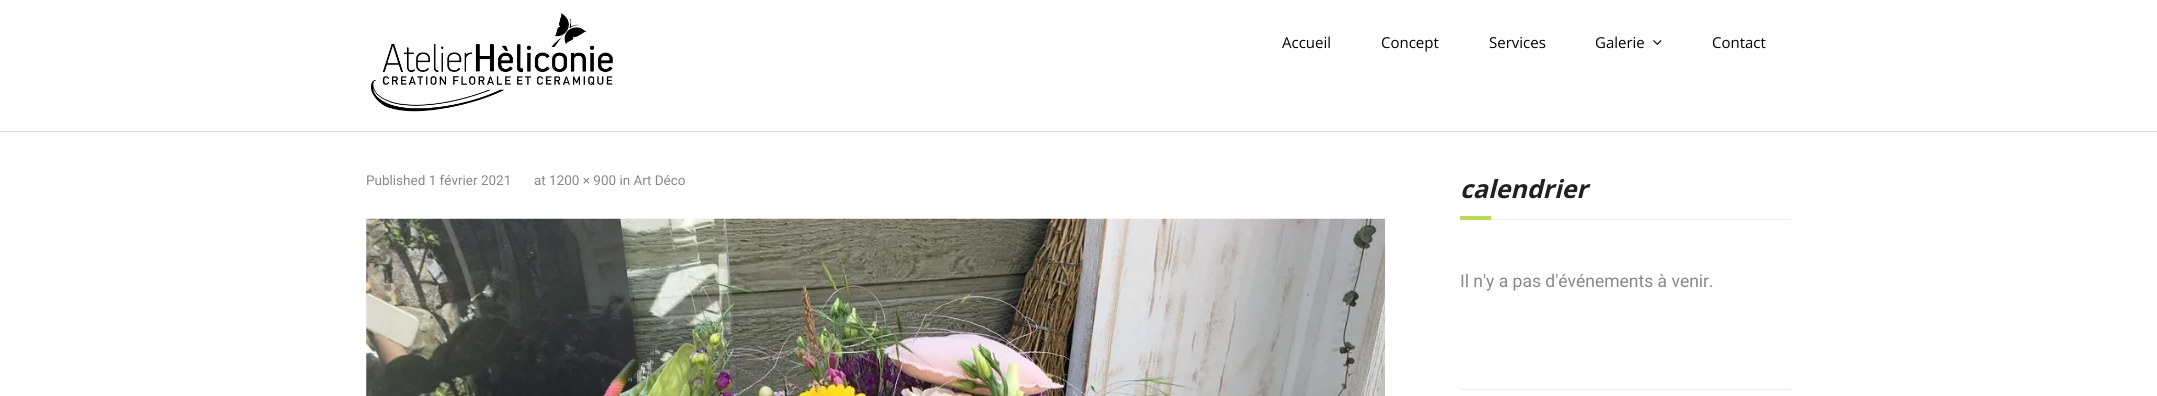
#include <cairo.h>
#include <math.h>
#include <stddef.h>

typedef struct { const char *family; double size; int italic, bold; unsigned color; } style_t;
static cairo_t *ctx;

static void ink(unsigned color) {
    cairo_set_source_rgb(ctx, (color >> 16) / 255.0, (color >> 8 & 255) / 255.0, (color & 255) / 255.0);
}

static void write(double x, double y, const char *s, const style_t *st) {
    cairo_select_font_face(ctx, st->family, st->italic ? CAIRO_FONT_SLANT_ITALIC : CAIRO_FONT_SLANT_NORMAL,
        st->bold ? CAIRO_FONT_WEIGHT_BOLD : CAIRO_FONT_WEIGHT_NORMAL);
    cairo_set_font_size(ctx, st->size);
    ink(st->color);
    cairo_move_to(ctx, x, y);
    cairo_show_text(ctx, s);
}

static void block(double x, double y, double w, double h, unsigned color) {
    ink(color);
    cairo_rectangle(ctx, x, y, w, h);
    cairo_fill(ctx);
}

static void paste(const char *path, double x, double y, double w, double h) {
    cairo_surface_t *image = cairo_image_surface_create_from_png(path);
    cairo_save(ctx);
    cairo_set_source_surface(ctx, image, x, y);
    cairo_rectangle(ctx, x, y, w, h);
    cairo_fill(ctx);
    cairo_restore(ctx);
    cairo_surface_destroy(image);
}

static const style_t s1 = {"Open Sans", 15, 0, 0, 0x000000};
static const style_t s2 = {"Roboto", 13.5, 0, 0, 0x888888};
static const style_t s3 = {"Open Sans", 25, 1, 1, 0x202020};
static const style_t s4 = {"Roboto", 17.5, 0, 0, 0x888888};

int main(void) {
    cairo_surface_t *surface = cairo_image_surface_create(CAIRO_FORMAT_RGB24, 2157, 396);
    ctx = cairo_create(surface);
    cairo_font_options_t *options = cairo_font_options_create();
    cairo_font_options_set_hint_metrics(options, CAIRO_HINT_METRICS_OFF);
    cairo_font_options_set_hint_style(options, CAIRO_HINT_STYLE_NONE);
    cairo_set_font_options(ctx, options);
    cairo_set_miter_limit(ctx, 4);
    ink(0xffffff);
    cairo_paint(ctx);
    block(0, 131, 2157, 1, 0xe0e0e0);
    paste("pic1.png", 370, 13, 243, 99);
    write(1282, 48, "Accueil", &s1);
    write(1381, 48, "Concept", &s1);
    write(1489, 48, "Services", &s1);
    write(1595, 48, "Galerie", &s1);
    paste("pic2.png", 1653, 40, 9, 5);
    write(1712, 48, "Contact", &s1);
    write(366, 185, "Published 1 février 2021", &s2);
    write(534, 185, "at 1200 × 900 in Art Déco", &s2);
    paste("pic3.png", 366, 218, 1019, 178);
    block(1460, 389, 331, 1, 0xeeeeee);
    write(1460, 198, "calendrier", &s3);
    block(1460, 216, 31, 4, 0xbada55);
    block(1491, 219, 300, 1, 0xeeeeee);
    write(1460, 287, "Il n'y a pas d'événements à venir.", &s4);
    cairo_surface_write_to_png(surface, "screenshot.png");
    cairo_font_options_destroy(options);
    cairo_destroy(ctx);
    cairo_surface_destroy(surface);
    return 0;
}
